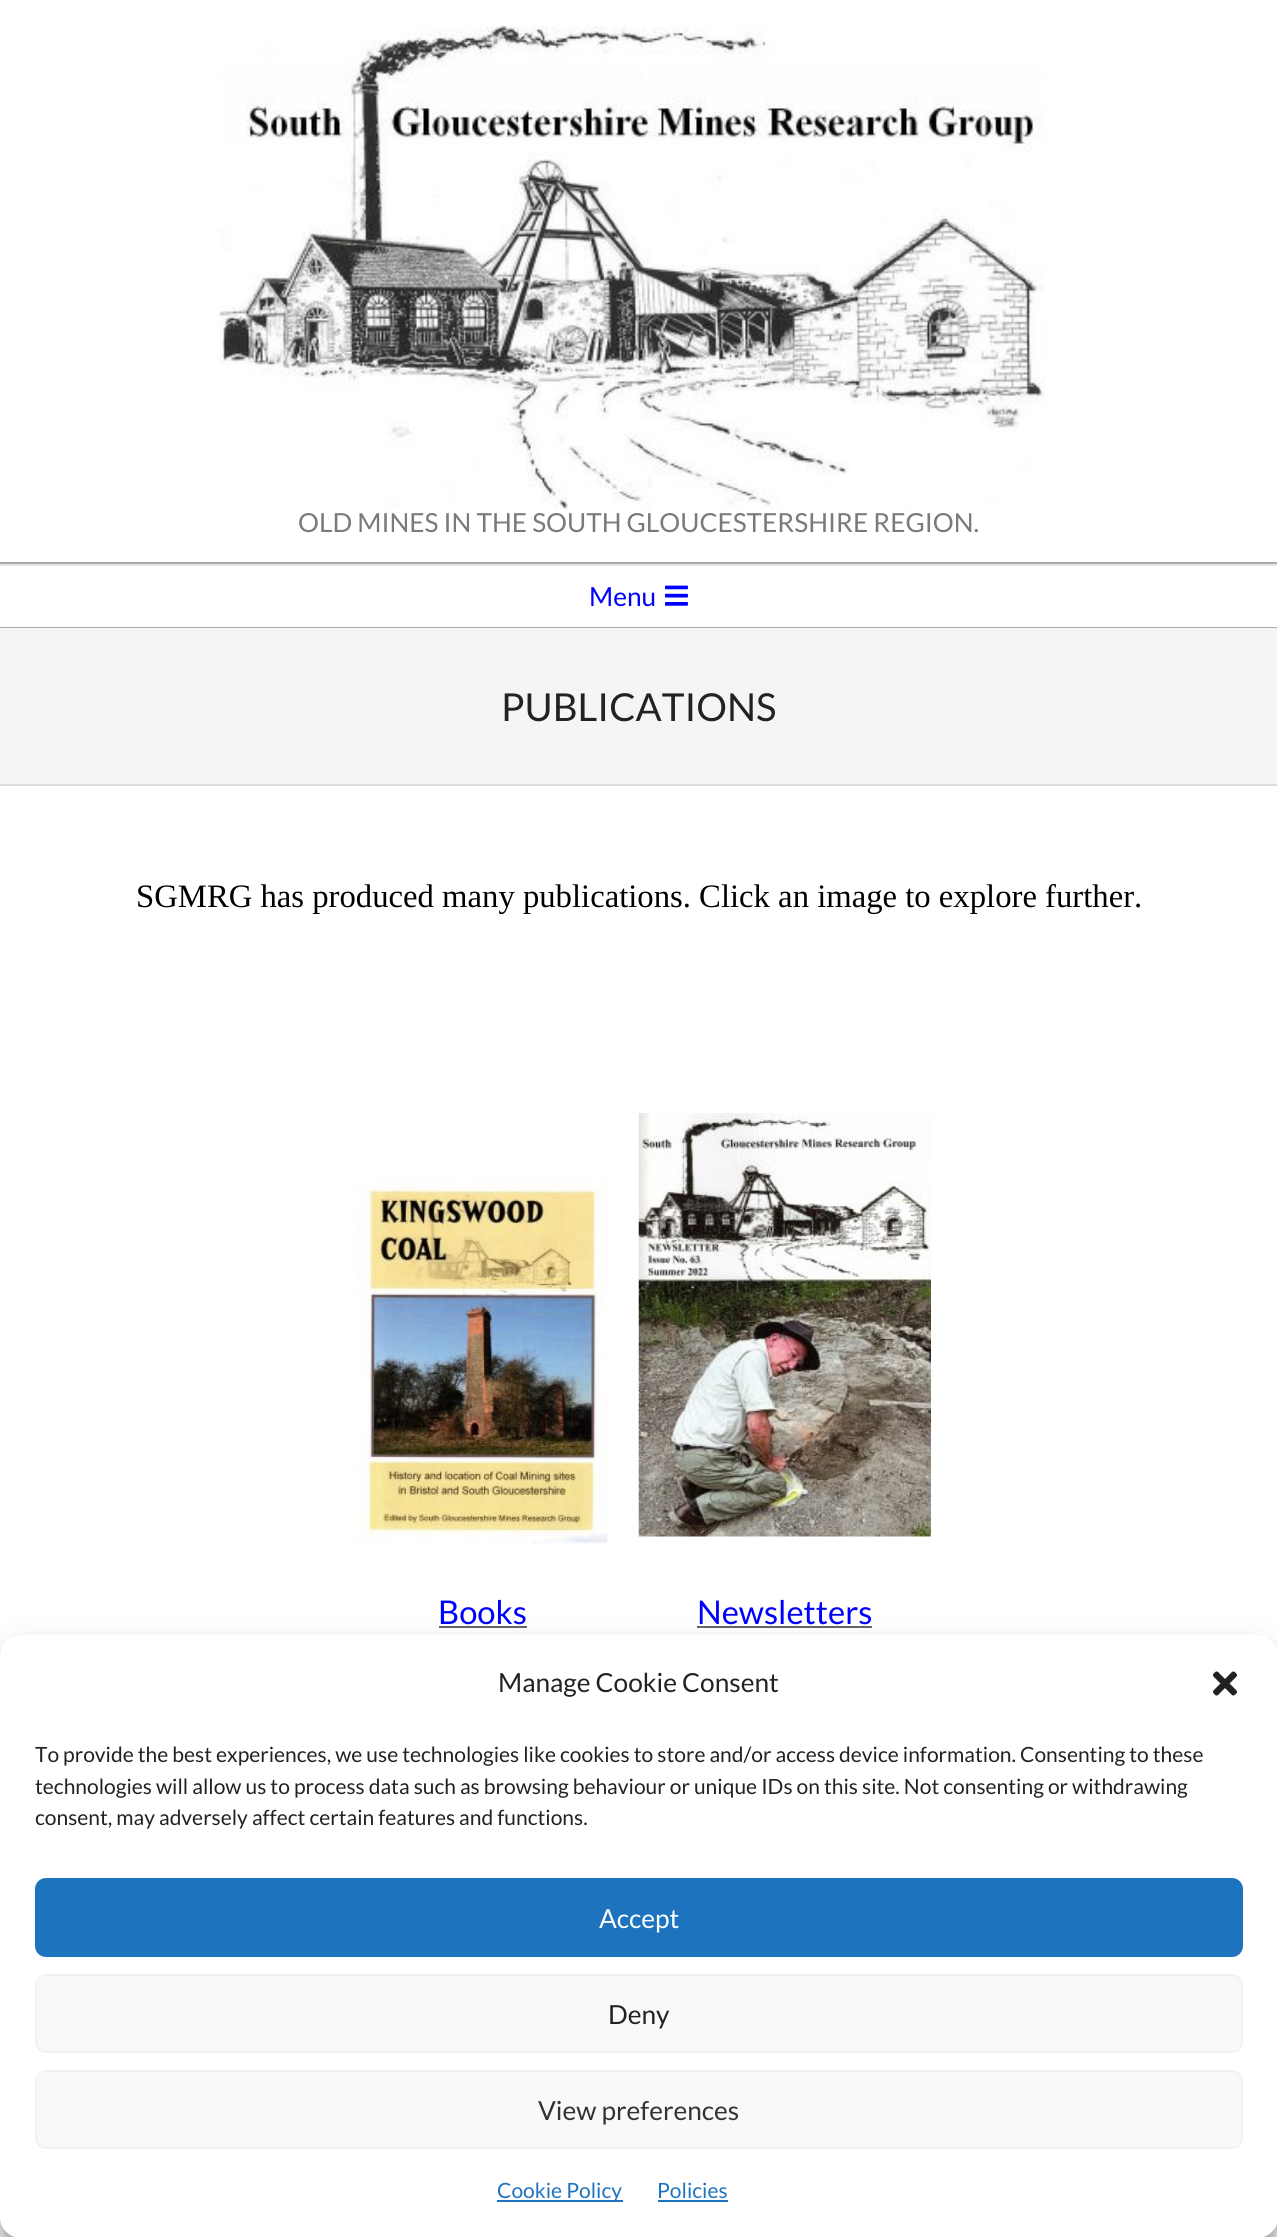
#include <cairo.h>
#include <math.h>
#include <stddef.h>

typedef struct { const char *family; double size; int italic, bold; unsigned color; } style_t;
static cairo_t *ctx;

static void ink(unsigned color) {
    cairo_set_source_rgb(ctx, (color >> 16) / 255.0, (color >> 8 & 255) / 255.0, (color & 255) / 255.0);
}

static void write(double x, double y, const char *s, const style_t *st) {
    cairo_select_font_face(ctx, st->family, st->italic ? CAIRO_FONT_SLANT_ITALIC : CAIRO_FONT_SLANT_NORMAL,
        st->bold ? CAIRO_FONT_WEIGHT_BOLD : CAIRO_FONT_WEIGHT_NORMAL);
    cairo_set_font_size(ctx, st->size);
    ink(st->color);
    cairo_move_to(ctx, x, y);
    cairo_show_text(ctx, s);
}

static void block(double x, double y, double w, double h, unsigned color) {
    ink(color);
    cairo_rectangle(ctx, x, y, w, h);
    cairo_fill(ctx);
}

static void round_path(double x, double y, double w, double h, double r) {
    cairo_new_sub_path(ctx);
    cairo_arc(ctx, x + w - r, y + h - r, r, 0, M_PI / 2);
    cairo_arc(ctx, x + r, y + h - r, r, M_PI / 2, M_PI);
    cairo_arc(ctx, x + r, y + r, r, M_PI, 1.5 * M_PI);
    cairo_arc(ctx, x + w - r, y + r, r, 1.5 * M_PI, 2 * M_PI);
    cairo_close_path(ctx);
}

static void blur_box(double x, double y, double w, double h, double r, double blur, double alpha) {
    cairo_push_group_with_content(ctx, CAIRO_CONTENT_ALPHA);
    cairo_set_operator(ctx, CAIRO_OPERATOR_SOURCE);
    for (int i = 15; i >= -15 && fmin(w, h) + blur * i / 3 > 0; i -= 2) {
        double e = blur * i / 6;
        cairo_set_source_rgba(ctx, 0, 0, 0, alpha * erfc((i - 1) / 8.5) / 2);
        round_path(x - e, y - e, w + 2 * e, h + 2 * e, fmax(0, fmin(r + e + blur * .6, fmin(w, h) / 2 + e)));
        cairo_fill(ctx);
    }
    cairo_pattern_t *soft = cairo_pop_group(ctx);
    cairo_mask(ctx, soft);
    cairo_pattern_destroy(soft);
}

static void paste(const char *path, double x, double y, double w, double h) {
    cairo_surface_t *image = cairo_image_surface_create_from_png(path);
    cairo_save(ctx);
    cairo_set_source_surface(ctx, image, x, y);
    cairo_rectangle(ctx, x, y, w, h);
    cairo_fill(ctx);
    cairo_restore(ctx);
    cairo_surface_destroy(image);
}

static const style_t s1 = {"Lato", 26.25, 0, 0, 0x7a7a7a};
static const style_t s2 = {"Lato", 26.25, 0, 0, 0x0000ff};
static const style_t s3 = {"Lato", 38.5, 0, 0, 0x222222};
static const style_t s4 = {"Liberation Serif", 32.7, 0, 0, 0x000000};
static const style_t s5 = {"Lato", 32.7, 0, 0, 0x0000ff};
static const style_t s6 = {"Lato", 26.25, 0, 0, 0x222222};
static const style_t s7 = {"Lato", 21, 0, 0, 0x222222};
static const style_t s8 = {"Lato", 26.25, 0, 0, 0xffffff};
static const style_t s9 = {"Lato", 26.25, 0, 0, 0x333333};
static const style_t s10 = {"Lato", 21, 0, 0, 0x1e73be};

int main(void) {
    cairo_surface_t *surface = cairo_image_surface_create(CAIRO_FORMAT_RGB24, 1277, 2237);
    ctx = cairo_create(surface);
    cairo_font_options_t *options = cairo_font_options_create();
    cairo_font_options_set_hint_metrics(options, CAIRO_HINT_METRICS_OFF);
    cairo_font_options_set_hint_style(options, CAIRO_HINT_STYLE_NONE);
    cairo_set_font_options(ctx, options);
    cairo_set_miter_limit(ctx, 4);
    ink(0xffffff);
    cairo_paint(ctx);
    block(0, 562, 1277, 2, 0xaaaaaa);
    paste("pic1.png", 218, 26, 827, 484);
    write(298, 532, "OLD MINES IN THE SOUTH GLOUCESTERSHIRE REGION.", &s1);
    block(0, 627, 1277, 1, 0xaaaaaa);
    block(0, 564, 1277, 2, 0xe6e6e6);
    write(589, 606, "Menu", &s2);
    paste("pic2.png", 665, 585, 23, 21);
    block(0, 628, 1277, 156, 0xf5f5f5);
    block(0, 784, 1277, 2, 0xdddddd);
    write(501, 721, "PUBLICATIONS", &s3);
    write(136, 907, "SGMRG has produced many publications. Click an image to explore further.", &s4);
    paste("pic3.png", 357, 1178, 251, 366);
    paste("pic4.png", 638, 1113, 293, 424);
    write(438, 1624, "Books", &s5);
    block(439, 1626, 88, 2, 0x666666);
    write(697, 1624, "Newsletters", &s5);
    block(697, 1626, 175, 2, 0x666666);
    ink(0x000000);
    blur_box(0, 1645, 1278, 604, 21, 5, 0.23);
    blur_box(0, 1652, 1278, 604, 21, 17.5, 0.19);
    ink(0xffffff);
    round_path(0, 1635, 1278, 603, 21);
    cairo_fill(ctx);
    write(498, 1692, "Manage Cookie Consent", &s6);
    paste("pic5.png", 1213, 1671, 24, 25);
    write(35, 1762, "To provide the best experiences, we use technologies like cookies to store and/or access device information. Consenting to these", &s7);
    write(35, 1794, "technologies will allow us to process data such as browsing behaviour or unique IDs on this site. Not consenting or withdrawing", &s7);
    write(35, 1825, "consent, may adversely affect certain features and functions.", &s7);
    ink(0x1e73be);
    round_path(36, 1879, 1206, 77, 10);
    cairo_fill_preserve(ctx);
    cairo_stroke(ctx);
    write(599, 1928, "Accept", &s8);
    ink(0xf9f9f9);
    round_path(36, 1975, 1206, 77, 10);
    cairo_fill_preserve(ctx);
    ink(0xf2f2f2);
    cairo_stroke(ctx);
    write(608, 2024, "Deny", &s6);
    ink(0xf9f9f9);
    round_path(36, 2071, 1206, 77, 10);
    cairo_fill_preserve(ctx);
    ink(0xf2f2f2);
    cairo_stroke(ctx);
    write(538, 2120, "View preferences", &s9);
    block(497, 2200, 126, 2, 0x1e73be);
    write(497, 2198, "Cookie Policy", &s10);
    write(657, 2198, "Policies", &s10);
    block(658, 2200, 70, 2, 0x1e73be);
    cairo_surface_write_to_png(surface, "screenshot.png");
    cairo_font_options_destroy(options);
    cairo_destroy(ctx);
    cairo_surface_destroy(surface);
    return 0;
}
